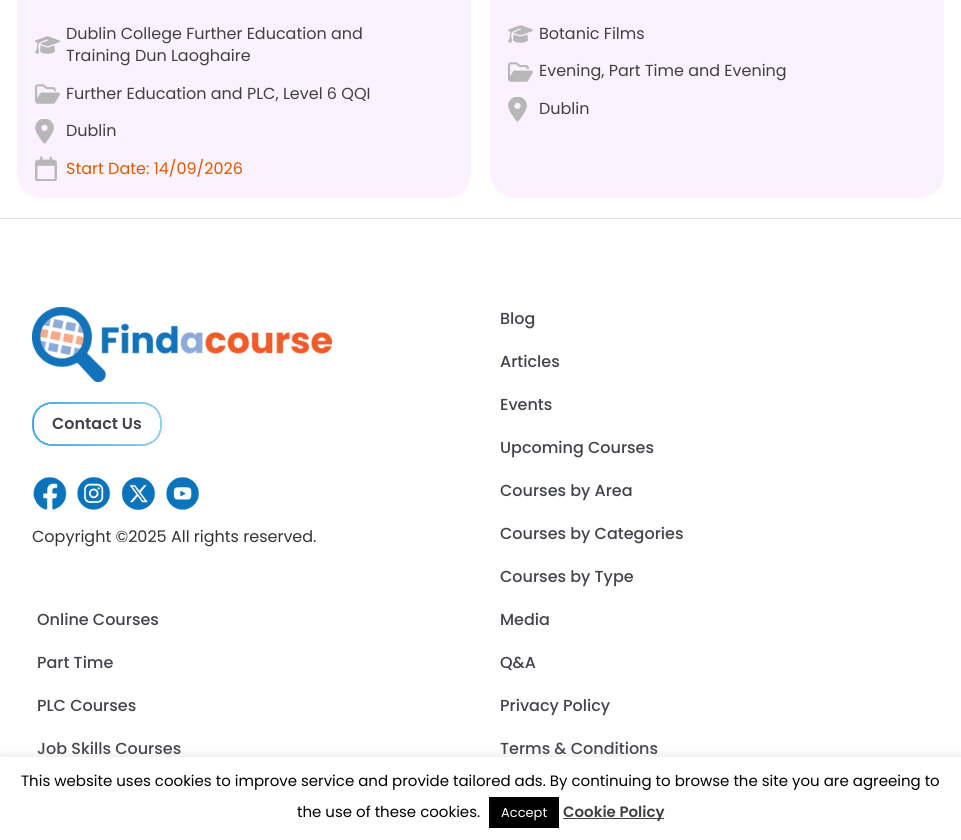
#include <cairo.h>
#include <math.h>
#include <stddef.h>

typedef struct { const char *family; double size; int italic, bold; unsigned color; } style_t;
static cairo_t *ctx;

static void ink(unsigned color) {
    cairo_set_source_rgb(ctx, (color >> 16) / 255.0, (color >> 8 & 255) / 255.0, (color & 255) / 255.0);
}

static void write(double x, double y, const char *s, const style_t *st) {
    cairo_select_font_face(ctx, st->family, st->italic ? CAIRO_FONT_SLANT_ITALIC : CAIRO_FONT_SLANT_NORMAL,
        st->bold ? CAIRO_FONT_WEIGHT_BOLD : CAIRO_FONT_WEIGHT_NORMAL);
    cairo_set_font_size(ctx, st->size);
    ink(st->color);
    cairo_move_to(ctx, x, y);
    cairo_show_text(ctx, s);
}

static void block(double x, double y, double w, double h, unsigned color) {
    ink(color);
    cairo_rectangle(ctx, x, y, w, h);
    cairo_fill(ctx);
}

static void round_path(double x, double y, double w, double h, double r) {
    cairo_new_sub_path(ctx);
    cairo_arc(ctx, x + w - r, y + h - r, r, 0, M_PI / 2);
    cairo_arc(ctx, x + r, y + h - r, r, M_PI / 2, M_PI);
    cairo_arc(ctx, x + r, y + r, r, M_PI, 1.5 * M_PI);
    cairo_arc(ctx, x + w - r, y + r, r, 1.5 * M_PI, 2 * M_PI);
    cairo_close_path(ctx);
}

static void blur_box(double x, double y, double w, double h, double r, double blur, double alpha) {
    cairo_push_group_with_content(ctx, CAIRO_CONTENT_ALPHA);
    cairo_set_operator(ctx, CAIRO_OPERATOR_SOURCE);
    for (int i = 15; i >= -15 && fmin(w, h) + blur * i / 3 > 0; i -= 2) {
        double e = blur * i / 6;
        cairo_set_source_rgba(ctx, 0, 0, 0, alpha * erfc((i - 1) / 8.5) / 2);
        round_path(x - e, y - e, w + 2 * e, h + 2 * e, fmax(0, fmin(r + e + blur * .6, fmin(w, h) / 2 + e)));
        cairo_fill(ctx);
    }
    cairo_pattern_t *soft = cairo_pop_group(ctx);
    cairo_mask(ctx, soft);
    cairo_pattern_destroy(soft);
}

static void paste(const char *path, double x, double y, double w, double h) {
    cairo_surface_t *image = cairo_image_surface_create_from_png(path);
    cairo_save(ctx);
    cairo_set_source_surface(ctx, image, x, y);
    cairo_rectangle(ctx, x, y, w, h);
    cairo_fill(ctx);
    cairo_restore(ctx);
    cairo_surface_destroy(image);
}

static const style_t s1 = {"Poppins", 16, 0, 0, 0x404040};
static const style_t s2 = {"Poppins", 16, 0, 0, 0xdc5900};
static const style_t s3 = {"Poppins SemiBold", 16, 0, 0, 0x42444b};
static const style_t s4 = {"Poppins", 16, 0, 0, 0x333333};
static const style_t s5 = {"Poppins Medium", 16, 0, 0, 0x42444b};
static const style_t s6 = {"Poppins", 15, 0, 0, 0x000000};
static const style_t s7 = {"Poppins", 13, 0, 0, 0xffffff};
static const style_t s8 = {"Poppins SemiBold", 15, 0, 0, 0x404040};

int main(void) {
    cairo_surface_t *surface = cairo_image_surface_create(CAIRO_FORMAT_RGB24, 961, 840);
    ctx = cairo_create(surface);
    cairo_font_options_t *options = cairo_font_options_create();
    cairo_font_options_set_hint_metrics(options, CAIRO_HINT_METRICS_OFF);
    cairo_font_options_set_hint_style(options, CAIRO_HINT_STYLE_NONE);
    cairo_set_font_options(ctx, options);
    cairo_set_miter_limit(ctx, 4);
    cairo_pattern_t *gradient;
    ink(0xffffff);
    cairo_paint(ctx);
    ink(0xfcf1ff);
    round_path(17, -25, 454, 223, 25);
    cairo_fill(ctx);
    paste("pic1.png", 35, 36, 25, 18);
    write(66, 39, "Dublin College Further Education and", &s1);
    write(66, 61, "Training Dun Laoghaire", &s1);
    paste("pic2.png", 35, 84, 25, 20);
    write(66, 99, "Further Education and PLC, Level 6 QQI", &s1);
    paste("pic3.png", 35, 119, 19, 25);
    write(66, 136, "Dublin", &s1);
    paste("pic4.png", 35, 156, 22, 25);
    write(66, 174, "Start Date: 14/09/2026", &s2);
    ink(0xfcf1ff);
    round_path(490, -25, 454, 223, 25);
    cairo_fill(ctx);
    paste("pic1.png", 508, 25, 25, 18);
    write(539, 39, "Botanic Films", &s1);
    paste("pic2.png", 508, 62, 25, 20);
    write(539, 76, "Evening, Part Time and Evening", &s1);
    paste("pic3.png", 508, 97, 19, 25);
    write(539, 114, "Dublin", &s1);
    block(0, 218, 961, 1, 0xe0e0e0);
    paste("pic5.png", 32, 307, 300, 75);
    gradient = cairo_pattern_create_linear(32, 424, 162, 424);
    cairo_pattern_add_color_stop_rgba(gradient, 0, 1, 1, 1, 1);
    cairo_pattern_add_color_stop_rgba(gradient, 0, 0.282, 0.671, 0.878, 1);
    cairo_pattern_add_color_stop_rgba(gradient, 1, 0.584, 0.808, 0.929, 1);
    cairo_set_source(ctx, gradient);
    cairo_pattern_destroy(gradient);
    round_path(32, 402, 130, 44, 20);
    cairo_fill(ctx);
    block(52, 404, 90, 40, 0xffffff);
    block(34, 422, 126, 4, 0xffffff);
    gradient = cairo_pattern_create_radial(142, 426, 0, 142, 426, 28);
    cairo_pattern_add_color_stop_rgba(gradient, 0, 1, 1, 1, 1);
    cairo_pattern_add_color_stop_rgba(gradient, 0.64, 1, 1, 1, 1);
    cairo_pattern_add_color_stop_rgba(gradient, 0.64, 1, 1, 1, 0);
    cairo_set_source(ctx, gradient);
    cairo_pattern_destroy(gradient);
    cairo_rectangle(ctx, 142, 426, 18, 18);
    cairo_fill(ctx);
    gradient = cairo_pattern_create_radial(52, 426, 0, 52, 426, 28);
    cairo_pattern_add_color_stop_rgba(gradient, 0, 1, 1, 1, 1);
    cairo_pattern_add_color_stop_rgba(gradient, 0.64, 1, 1, 1, 1);
    cairo_pattern_add_color_stop_rgba(gradient, 0.64, 1, 1, 1, 0);
    cairo_set_source(ctx, gradient);
    cairo_pattern_destroy(gradient);
    cairo_rectangle(ctx, 34, 426, 18, 18);
    cairo_fill(ctx);
    gradient = cairo_pattern_create_radial(142, 422, 0, 142, 422, 28);
    cairo_pattern_add_color_stop_rgba(gradient, 0, 1, 1, 1, 1);
    cairo_pattern_add_color_stop_rgba(gradient, 0.64, 1, 1, 1, 1);
    cairo_pattern_add_color_stop_rgba(gradient, 0.64, 1, 1, 1, 0);
    cairo_set_source(ctx, gradient);
    cairo_pattern_destroy(gradient);
    cairo_rectangle(ctx, 142, 404, 18, 18);
    cairo_fill(ctx);
    gradient = cairo_pattern_create_radial(52, 422, 0, 52, 422, 28);
    cairo_pattern_add_color_stop_rgba(gradient, 0, 1, 1, 1, 1);
    cairo_pattern_add_color_stop_rgba(gradient, 0.64, 1, 1, 1, 1);
    cairo_pattern_add_color_stop_rgba(gradient, 0.64, 1, 1, 1, 0);
    cairo_set_source(ctx, gradient);
    cairo_pattern_destroy(gradient);
    cairo_rectangle(ctx, 34, 404, 18, 18);
    cairo_fill(ctx);
    write(52, 429, "Contact Us", &s3);
    paste("pic6.png", 33, 476, 34, 34);
    paste("pic7.png", 77, 476, 34, 34);
    paste("pic8.png", 121, 476, 35, 35);
    paste("pic9.png", 166, 476, 34, 34);
    write(32, 542, "Copyright ©2025 All rights reserved.", &s4);
    write(500, 324, "Blog", &s5);
    write(500, 367, "Articles", &s5);
    write(500, 410, "Events", &s5);
    write(500, 453, "Upcoming Courses", &s5);
    write(500, 496, "Courses by Area", &s5);
    write(500, 539, "Courses by Categories", &s5);
    write(500, 582, "Courses by Type", &s5);
    write(37, 625, "Online Courses", &s5);
    write(37, 668, "Part Time", &s5);
    write(37, 711, "PLC Courses", &s5);
    write(37, 754, "Job Skills Courses", &s5);
    write(500, 625, "Media", &s5);
    write(500, 668, "Q&A", &s5);
    write(500, 711, "Privacy Policy", &s5);
    write(500, 754, "Terms & Conditions", &s5);
    ink(0xacabab);
    blur_box(0, 756, 961, 83, 0, 5, 0.3);
    block(0, 757, 961, 83, 0xffffff);
    write(21, 786, "This website uses cookies to improve service and provide tailored ads. By continuing to browse the site you are agreeing to", &s6);
    write(297, 817, "the use of these cookies.", &s6);
    block(489, 797, 70, 31, 0x000000);
    write(501, 817, "Accept", &s7);
    block(563, 818, 101, 1, 0x444444);
    write(563, 817, "Cookie Policy", &s8);
    cairo_surface_write_to_png(surface, "screenshot.png");
    cairo_font_options_destroy(options);
    cairo_destroy(ctx);
    cairo_surface_destroy(surface);
    return 0;
}
